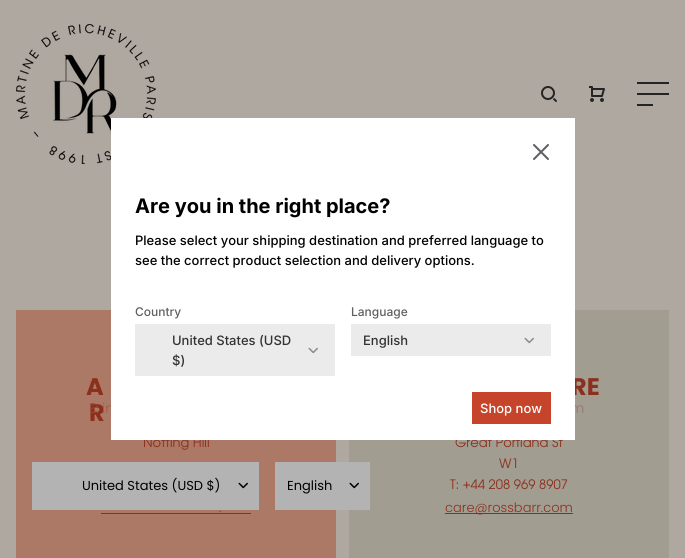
#include <cairo.h>
#include <math.h>
#include <stddef.h>

typedef struct { const char *family; double size; int italic, bold; unsigned color; } style_t;
static cairo_t *ctx;

static void ink(unsigned color) {
    cairo_set_source_rgb(ctx, (color >> 16) / 255.0, (color >> 8 & 255) / 255.0, (color & 255) / 255.0);
}

static void write(double x, double y, const char *s, const style_t *st) {
    cairo_select_font_face(ctx, st->family, st->italic ? CAIRO_FONT_SLANT_ITALIC : CAIRO_FONT_SLANT_NORMAL,
        st->bold ? CAIRO_FONT_WEIGHT_BOLD : CAIRO_FONT_WEIGHT_NORMAL);
    cairo_set_font_size(ctx, st->size);
    ink(st->color);
    cairo_move_to(ctx, x, y);
    cairo_show_text(ctx, s);
}

static void block(double x, double y, double w, double h, unsigned color) {
    ink(color);
    cairo_rectangle(ctx, x, y, w, h);
    cairo_fill(ctx);
}

static void paste(const char *path, double x, double y, double w, double h) {
    cairo_surface_t *image = cairo_image_surface_create_from_png(path);
    cairo_save(ctx);
    cairo_set_source_surface(ctx, image, x, y);
    cairo_rectangle(ctx, x, y, w, h);
    cairo_fill(ctx);
    cairo_restore(ctx);
    cairo_surface_destroy(image);
}

static const style_t s1 = {"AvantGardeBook", 13, 0, 0, 0x8b301d};
static const style_t s2 = {"Poppins", 24, 0, 1, 0x8b301d};
static const style_t s3 = {"Poppins Light", 14, 0, 0, 0xa05c4a};
static const style_t s4 = {"Poppins Light", 14, 0, 0, 0x997466};
static const style_t s5 = {"Inter", 20, 0, 1, 0x000000};
static const style_t s6 = {"Inter Medium", 13, 0, 0, 0x000000};
static const style_t s7 = {"Inter Medium", 12, 0, 0, 0x615f5f};
static const style_t s8 = {"Inter Medium", 13, 0, 0, 0x333333};
static const style_t s9 = {"Inter Medium", 13, 0, 0, 0xffffff};
static const style_t s10 = {"Poppins Light", 14, 0, 0, 0x994e3b};
static const style_t s11 = {"Poppins Light", 13, 0, 0, 0x8b301d};
static const style_t s12 = {"Poppins", 13, 0, 0, 0x000000};

int main(void) {
    cairo_surface_t *surface = cairo_image_surface_create(CAIRO_FORMAT_RGB24, 685, 558);
    ctx = cairo_create(surface);
    cairo_font_options_t *options = cairo_font_options_create();
    cairo_font_options_set_hint_metrics(options, CAIRO_HINT_METRICS_OFF);
    cairo_font_options_set_hint_style(options, CAIRO_HINT_STYLE_NONE);
    cairo_set_font_options(ctx, options);
    cairo_set_miter_limit(ctx, 4);
    ink(0xaea8a0);
    cairo_paint(ctx);
    paste("pic3.png", 16, 24, 140, 140);
    block(16, 310, 320, 248, 0xad7967);
    write(143, 447, "Notting Hill", &s1);
    write(89, 421, "R", &s2);
    write(102, 413, "in", &s3);
    block(349, 310, 320, 248, 0xa29d91);
    write(571, 395, "RE", &s2);
    write(455, 447, "Great Portland St", &s1);
    write(570, 413, "m", &s4);
    block(111, 118, 464, 322, 0xffffff);
    paste("pic1.png", 533, 144, 16, 16);
    write(135, 213, "Are you in the right place?", &s5);
    write(135, 245, "Please select your shipping destination and preferred language to", &s6);
    write(135, 265, "see the correct product selection and delivery options.", &s6);
    write(135, 316, "Country", &s7);
    block(135, 324, 200, 52, 0xebebeb);
    write(172, 345, "United States (USD", &s8);
    write(172, 365, "$)", &s8);
    paste("pic2.png", 308, 347, 10, 7);
    write(351, 316, "Language", &s7);
    block(351, 324, 200, 32, 0xebebeb);
    write(363, 345, "English", &s8);
    paste("pic2.png", 524, 337, 10, 7);
    block(472, 392, 79, 32, 0xc64429);
    write(480, 413, "Shop now", &s9);
    paste("pic4.png", 541, 86, 16, 16);
    paste("pic5.png", 589, 86, 16, 16);
    paste("pic6.png", 637, 82, 32, 24);
    write(86, 395, "A", &s2);
    write(89, 413, "E:", &s10);
    write(219, 512, ".", &s11);
    block(101, 513, 150, 1, 0x8b301d);
    write(499, 468, "W1", &s1);
    write(450, 489, "T: +44 208 969 8907", &s1);
    block(445, 513, 128, 1, 0x8b301d);
    write(445, 512, "care@rossbarr.com", &s11);
    block(32, 462, 227, 48, 0xb3b3b3);
    write(82, 490, "United States (USD $)", &s12);
    paste("pic7.png", 238, 482, 10, 7);
    block(275, 462, 95, 48, 0xb3b3b3);
    write(287, 490, "English", &s12);
    paste("pic7.png", 349, 482, 10, 7);
    cairo_surface_write_to_png(surface, "screenshot.png");
    cairo_font_options_destroy(options);
    cairo_destroy(ctx);
    cairo_surface_destroy(surface);
    return 0;
}
